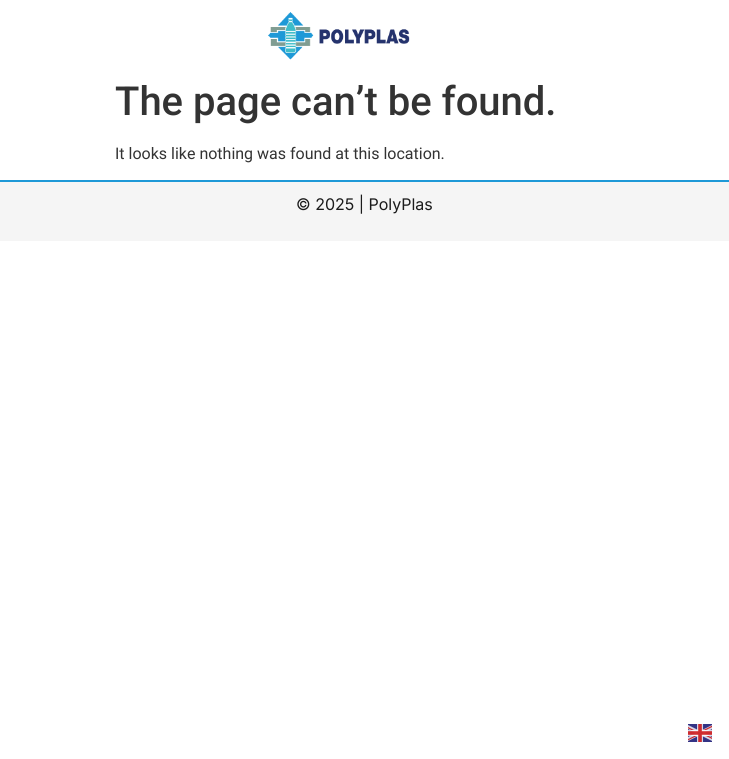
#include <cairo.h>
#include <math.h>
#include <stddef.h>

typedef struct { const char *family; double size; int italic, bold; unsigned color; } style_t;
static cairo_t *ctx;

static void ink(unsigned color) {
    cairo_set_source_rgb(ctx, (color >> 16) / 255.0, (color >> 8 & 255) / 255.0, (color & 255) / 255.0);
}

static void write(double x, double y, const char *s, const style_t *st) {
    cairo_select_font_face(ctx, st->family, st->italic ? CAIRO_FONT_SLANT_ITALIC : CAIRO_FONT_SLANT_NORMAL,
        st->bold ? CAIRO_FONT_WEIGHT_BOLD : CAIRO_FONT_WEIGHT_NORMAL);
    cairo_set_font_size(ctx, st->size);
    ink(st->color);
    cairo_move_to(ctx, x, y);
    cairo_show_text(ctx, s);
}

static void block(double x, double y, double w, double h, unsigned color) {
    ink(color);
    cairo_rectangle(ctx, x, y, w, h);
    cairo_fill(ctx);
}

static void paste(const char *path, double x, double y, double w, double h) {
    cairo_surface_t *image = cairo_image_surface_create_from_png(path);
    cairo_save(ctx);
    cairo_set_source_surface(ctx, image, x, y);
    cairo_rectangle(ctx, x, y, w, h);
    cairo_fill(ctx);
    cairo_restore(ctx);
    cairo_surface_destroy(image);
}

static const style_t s1 = {"Roboto Medium", 40, 0, 0, 0x333333};
static const style_t s2 = {"Roboto", 16, 0, 0, 0x333333};
static const style_t s3 = {"Inter", 16, 0, 0, 0x1b1b1b};

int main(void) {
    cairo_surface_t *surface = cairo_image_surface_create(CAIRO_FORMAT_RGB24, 729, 759);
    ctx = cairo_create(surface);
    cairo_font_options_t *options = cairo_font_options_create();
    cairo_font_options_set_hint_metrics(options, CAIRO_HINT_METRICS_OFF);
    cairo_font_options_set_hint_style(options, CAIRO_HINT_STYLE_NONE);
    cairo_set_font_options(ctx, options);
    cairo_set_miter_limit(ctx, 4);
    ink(0xffffff);
    cairo_paint(ctx);
    paste("pic1.png", 268, 12, 142, 48);
    write(115, 115, "The page can’t be found.", &s1);
    write(115, 159, "It looks like nothing was found at this location.", &s2);
    block(0, 182, 729, 59, 0xf5f5f5);
    block(0, 180, 729, 2, 0x1e99d7);
    write(296, 210, "© 2025 | PolyPlas", &s3);
    paste("pic2.png", 688, 724, 24, 18);
    cairo_surface_write_to_png(surface, "screenshot.png");
    cairo_font_options_destroy(options);
    cairo_destroy(ctx);
    cairo_surface_destroy(surface);
    return 0;
}
